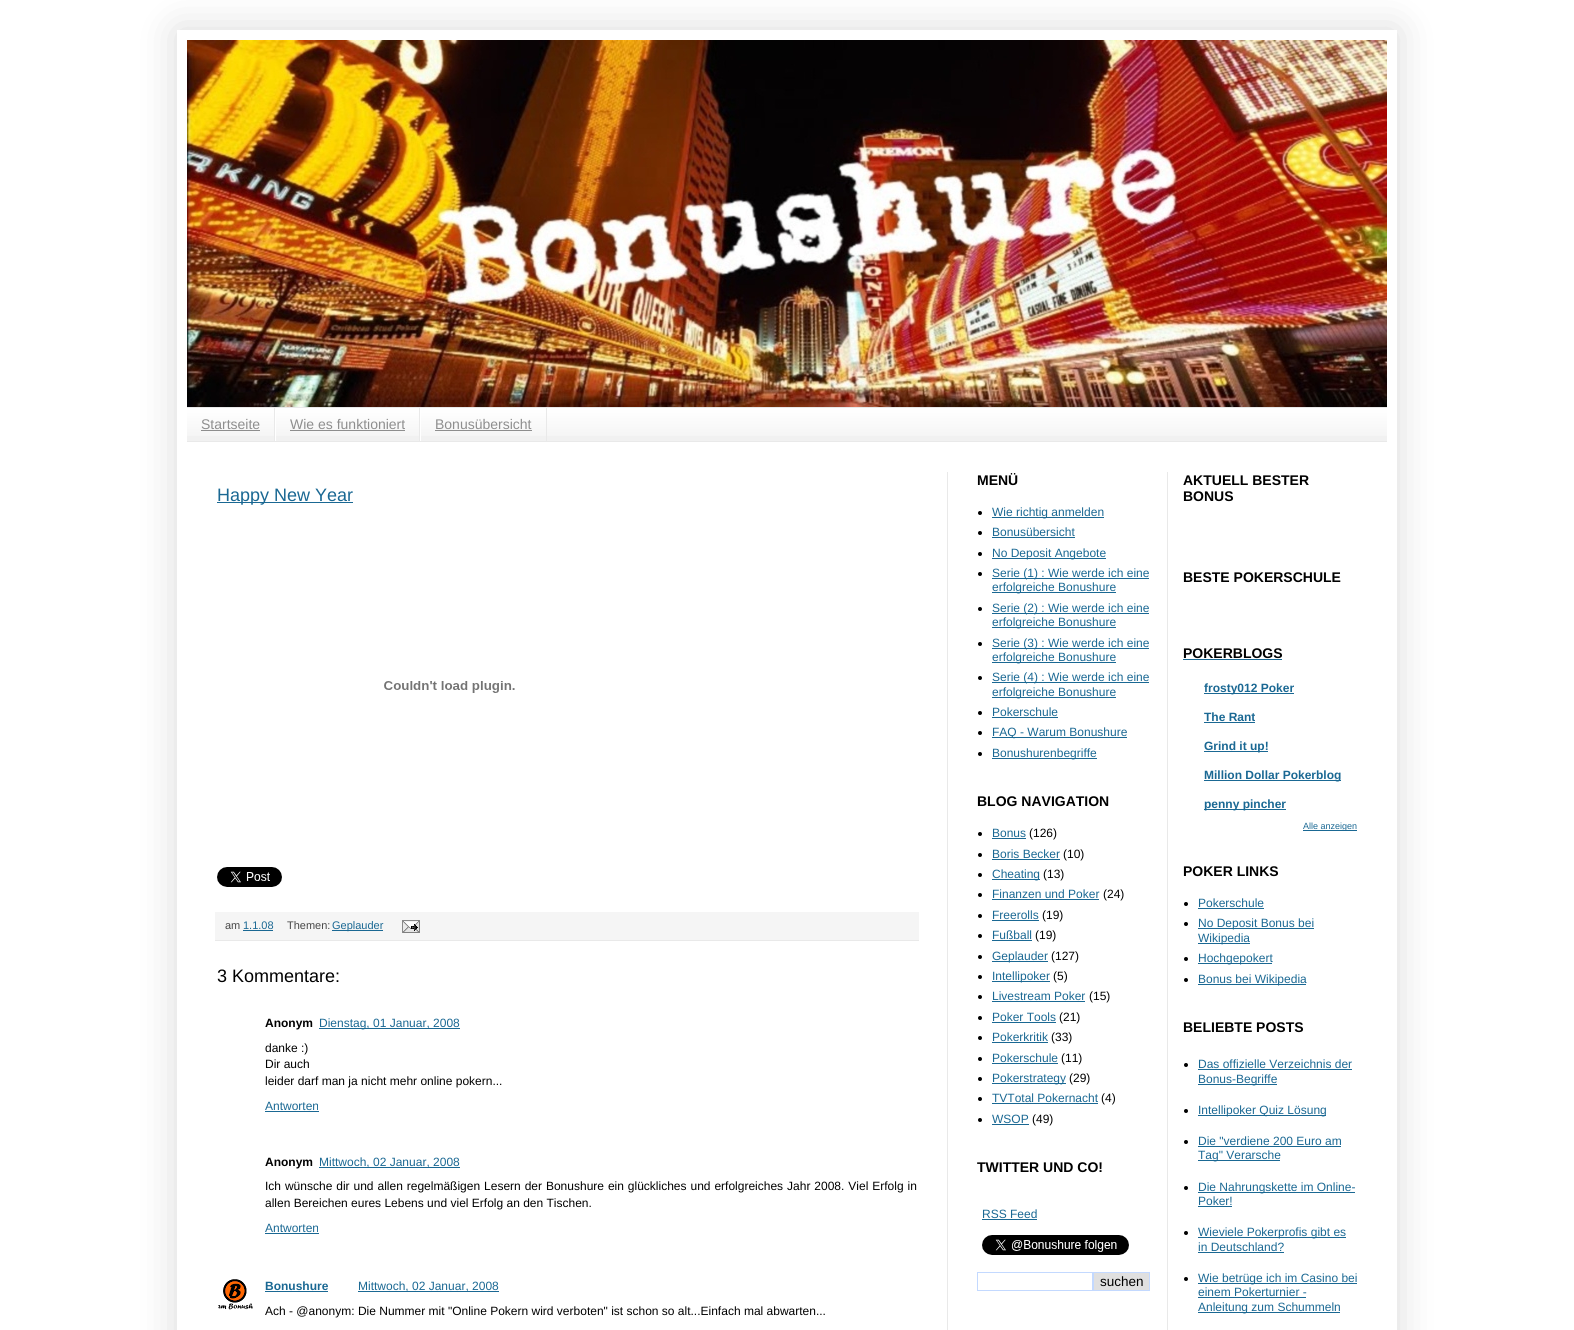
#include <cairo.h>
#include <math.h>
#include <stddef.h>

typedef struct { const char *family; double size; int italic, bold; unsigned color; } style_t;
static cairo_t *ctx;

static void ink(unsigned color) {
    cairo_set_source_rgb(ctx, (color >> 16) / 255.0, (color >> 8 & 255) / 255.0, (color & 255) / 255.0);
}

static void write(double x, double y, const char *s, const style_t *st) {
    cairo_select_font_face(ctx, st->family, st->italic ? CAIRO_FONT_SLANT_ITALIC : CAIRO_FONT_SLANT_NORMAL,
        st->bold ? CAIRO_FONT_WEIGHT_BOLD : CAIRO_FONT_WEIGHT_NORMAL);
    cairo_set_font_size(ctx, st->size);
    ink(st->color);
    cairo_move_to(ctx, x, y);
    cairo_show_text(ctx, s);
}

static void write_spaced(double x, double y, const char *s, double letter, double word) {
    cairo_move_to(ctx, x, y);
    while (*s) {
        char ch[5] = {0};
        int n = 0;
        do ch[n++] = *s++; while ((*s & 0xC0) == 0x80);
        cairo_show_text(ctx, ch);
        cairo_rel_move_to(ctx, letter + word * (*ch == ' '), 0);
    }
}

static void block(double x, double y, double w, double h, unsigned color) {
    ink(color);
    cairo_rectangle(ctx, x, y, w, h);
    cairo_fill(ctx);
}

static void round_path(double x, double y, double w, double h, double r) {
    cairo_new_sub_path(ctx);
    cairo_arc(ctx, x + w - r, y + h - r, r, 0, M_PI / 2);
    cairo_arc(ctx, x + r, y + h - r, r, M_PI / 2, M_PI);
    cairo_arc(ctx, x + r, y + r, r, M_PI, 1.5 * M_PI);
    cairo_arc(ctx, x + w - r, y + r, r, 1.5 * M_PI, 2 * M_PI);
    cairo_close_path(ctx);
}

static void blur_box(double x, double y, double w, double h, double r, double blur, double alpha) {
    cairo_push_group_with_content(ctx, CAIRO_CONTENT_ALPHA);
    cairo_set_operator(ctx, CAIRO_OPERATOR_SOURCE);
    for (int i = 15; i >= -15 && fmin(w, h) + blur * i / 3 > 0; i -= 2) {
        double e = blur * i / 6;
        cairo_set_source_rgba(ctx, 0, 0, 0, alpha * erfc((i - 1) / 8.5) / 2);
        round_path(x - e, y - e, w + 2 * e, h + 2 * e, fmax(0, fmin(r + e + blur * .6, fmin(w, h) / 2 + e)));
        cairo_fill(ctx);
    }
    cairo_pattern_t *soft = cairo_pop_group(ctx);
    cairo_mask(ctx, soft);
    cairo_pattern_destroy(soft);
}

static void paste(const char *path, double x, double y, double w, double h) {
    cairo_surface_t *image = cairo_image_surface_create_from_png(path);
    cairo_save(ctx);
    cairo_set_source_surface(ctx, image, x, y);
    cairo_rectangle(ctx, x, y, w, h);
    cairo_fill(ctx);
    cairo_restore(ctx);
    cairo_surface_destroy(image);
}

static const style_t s1 = {"Liberation Sans", 14, 0, 0, 0x8e8e8e};
static const style_t s2 = {"Liberation Sans", 18, 0, 0, 0x1a6893};
static const style_t s3 = {"Liberation Sans", 11, 0, 0, 0x474747};
static const style_t s4 = {"Liberation Sans", 11, 0, 0, 0x1a6893};
static const style_t s5 = {"Liberation Sans", 18, 0, 0, 0x000000};
static const style_t s6 = {"Liberation Sans", 12, 0, 1, 0x000000};
static const style_t s7 = {"Liberation Sans", 12, 0, 0, 0x1a6893};
static const style_t s8 = {"Liberation Sans", 12, 0, 0, 0x000000};
static const style_t s9 = {"Liberation Sans", 12, 0, 1, 0x1a6893};
static const style_t s10 = {"Liberation Sans", 14, 0, 1, 0x000000};
static const style_t s11 = {"Liberation Sans", 13.5, 0, 0, 0x000000};
static const style_t s12 = {"Liberation Sans", 9, 0, 0, 0x1a6893};

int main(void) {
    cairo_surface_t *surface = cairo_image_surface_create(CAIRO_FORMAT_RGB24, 1574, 1330);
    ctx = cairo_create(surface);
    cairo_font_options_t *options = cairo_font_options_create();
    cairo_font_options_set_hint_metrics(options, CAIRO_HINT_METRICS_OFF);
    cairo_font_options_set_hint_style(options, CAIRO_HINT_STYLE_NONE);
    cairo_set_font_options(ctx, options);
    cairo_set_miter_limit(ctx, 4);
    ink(0xffffff);
    cairo_paint(ctx);
    cairo_save(ctx);
    cairo_set_fill_rule(ctx, CAIRO_FILL_RULE_EVEN_ODD);
    cairo_new_path(ctx);
    cairo_move_to(ctx, 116, 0);
    cairo_line_to(ctx, 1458, 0);
    cairo_line_to(ctx, 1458, 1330);
    cairo_line_to(ctx, 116, 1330);
    cairo_close_path(ctx);
    cairo_move_to(ctx, 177, 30);
    cairo_line_to(ctx, 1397, 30);
    cairo_line_to(ctx, 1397, 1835);
    cairo_line_to(ctx, 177, 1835);
    cairo_close_path(ctx);
    cairo_clip(ctx);
    ink(0x000000);
    blur_box(177, 30, 1220, 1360, 0, 20, 0.15);
    cairo_restore(ctx);
    paste("pic1.png", 187, 40, 1200, 367);
    block(187, 409, 1200, 32, 0xf1f1f1);
    paste("pic2.png", 187, 408, 1200, 28);
    block(187, 407, 1200, 1, 0xe9e9e9);
    block(187, 441, 1200, 1, 0xe9e9e9);
    block(274, 408, 1, 33, 0xe9e9e9);
    write(201, 429, "Startseite", &s1);
    block(201, 430, 59, 1, 0x8e8e8e);
    block(419, 408, 1, 33, 0xe9e9e9);
    block(275, 408, 1, 33, 0xffffff);
    write(290, 429, "Wie es funktioniert", &s1);
    block(290, 430, 115, 1, 0x8e8e8e);
    block(546, 408, 1, 33, 0xe9e9e9);
    block(420, 408, 1, 33, 0xffffff);
    write(435, 429, "Bonusübersicht", &s1);
    block(435, 430, 97, 1, 0x8e8e8e);
    block(947, 472, 1, 858, 0xe9e9e9);
    block(217, 502, 136, 1, 0x1a6893);
    write(217, 501, "Happy New Year", &s2);
    paste("pic3.png", 384, 681, 131, 12);
    paste("pic4.png", 217, 867, 65, 20);
    block(215, 912, 704, 28, 0xf5f5f5);
    block(215, 940, 704, 1, 0xe9e9e9);
    write(225, 929, "am", &s3);
    write(243, 929, "1.1.08", &s4);
    block(243, 930, 30, 1, 0x1a6893);
    write(287, 929, "Themen:", &s3);
    block(332, 930, 51, 1, 0x1a6893);
    write(332, 929, "Geplauder", &s4);
    paste("pic5.png", 402, 920, 18, 13);
    write(217, 982, "3 Kommentare:", &s5);
    write(265, 1027, "Anonym", &s6);
    block(319, 1028, 141, 1, 0x1a6893);
    write(319, 1027, "Dienstag, 01 Januar, 2008", &s7);
    write(265, 1052, "danke :)", &s8);
    write(265, 1068, "Dir auch", &s8);
    write(265, 1085, "leider darf man ja nicht mehr online pokern...", &s8);
    write(265, 1110, "Antworten", &s7);
    block(265, 1111, 54, 1, 0x1a6893);
    write(265, 1166, "Anonym", &s6);
    block(319, 1167, 141, 1, 0x1a6893);
    write(319, 1166, "Mittwoch, 02 Januar, 2008", &s7);
    ink(0x000000);
    write_spaced(265, 1190, "Ich wünsche dir und allen regelmäßigen Lesern der Bonushure ein glückliches und erfolgreiches Jahr 2008. Viel Erfolg in", 0, 0.6);
    write(265, 1207, "allen Bereichen eures Lebens und viel Erfolg an den Tischen.", &s8);
    write(265, 1232, "Antworten", &s7);
    block(265, 1233, 54, 1, 0x1a6893);
    paste("pic6.png", 218, 1279, 35, 31);
    write(265, 1290, "Bonushure", &s9);
    block(265, 1291, 63, 1, 0x1a6893);
    block(358, 1291, 141, 1, 0x1a6893);
    write(358, 1290, "Mittwoch, 02 Januar, 2008", &s7);
    write(265, 1315, "Ach - @anonym: Die Nummer mit \"Online Pokern wird verboten\" ist schon so alt...Einfach mal abwarten...", &s8);
    write(977, 485, "MENÜ", &s10);
    cairo_new_path(ctx);
    cairo_arc(ctx, 980, 513, 2, 0, 2 * M_PI);
    cairo_fill(ctx);
    block(992, 517, 112, 1, 0x1a6893);
    write(992, 516, "Wie richtig anmelden", &s7);
    ink(0x000000);
    cairo_new_path(ctx);
    cairo_arc(ctx, 980, 533, 2, 0, 2 * M_PI);
    cairo_fill(ctx);
    write(992, 536, "Bonusübersicht", &s7);
    block(992, 537, 83, 1, 0x1a6893);
    ink(0x000000);
    cairo_new_path(ctx);
    cairo_arc(ctx, 980, 554, 2, 0, 2 * M_PI);
    cairo_fill(ctx);
    block(992, 558, 114, 1, 0x1a6893);
    write(992, 557, "No Deposit Angebote", &s7);
    ink(0x000000);
    cairo_new_path(ctx);
    cairo_arc(ctx, 980, 574, 2, 0, 2 * M_PI);
    cairo_fill(ctx);
    block(992, 578, 157, 1, 0x1a6893);
    write(992, 577, "Serie (1) : Wie werde ich eine", &s7);
    block(992, 592, 124, 1, 0x1a6893);
    write(992, 591, "erfolgreiche Bonushure", &s7);
    ink(0x000000);
    cairo_new_path(ctx);
    cairo_arc(ctx, 980, 609, 2, 0, 2 * M_PI);
    cairo_fill(ctx);
    block(992, 613, 157, 1, 0x1a6893);
    write(992, 612, "Serie (2) : Wie werde ich eine", &s7);
    block(992, 627, 124, 1, 0x1a6893);
    write(992, 626, "erfolgreiche Bonushure", &s7);
    ink(0x000000);
    cairo_new_path(ctx);
    cairo_arc(ctx, 980, 644, 2, 0, 2 * M_PI);
    cairo_fill(ctx);
    block(992, 648, 157, 1, 0x1a6893);
    write(992, 647, "Serie (3) : Wie werde ich eine", &s7);
    block(992, 662, 124, 1, 0x1a6893);
    write(992, 661, "erfolgreiche Bonushure", &s7);
    ink(0x000000);
    cairo_new_path(ctx);
    cairo_arc(ctx, 980, 678, 2, 0, 2 * M_PI);
    cairo_fill(ctx);
    block(992, 682, 157, 1, 0x1a6893);
    write(992, 681, "Serie (4) : Wie werde ich eine", &s7);
    block(992, 697, 124, 1, 0x1a6893);
    write(992, 696, "erfolgreiche Bonushure", &s7);
    ink(0x000000);
    cairo_new_path(ctx);
    cairo_arc(ctx, 980, 713, 2, 0, 2 * M_PI);
    cairo_fill(ctx);
    write(992, 716, "Pokerschule", &s7);
    block(992, 717, 66, 1, 0x1a6893);
    ink(0x000000);
    cairo_new_path(ctx);
    cairo_arc(ctx, 980, 733, 2, 0, 2 * M_PI);
    cairo_fill(ctx);
    block(992, 737, 135, 1, 0x1a6893);
    write(992, 736, "FAQ - Warum Bonushure", &s7);
    ink(0x000000);
    cairo_new_path(ctx);
    cairo_arc(ctx, 980, 754, 2, 0, 2 * M_PI);
    cairo_fill(ctx);
    block(992, 758, 105, 1, 0x1a6893);
    write(992, 757, "Bonushurenbegriffe", &s7);
    write(977, 806, "BLOG NAVIGATION", &s10);
    cairo_new_path(ctx);
    cairo_arc(ctx, 980, 834, 2, 0, 2 * M_PI);
    cairo_fill(ctx);
    write(992, 837, "Bonus", &s7);
    block(992, 838, 34, 1, 0x1a6893);
    write(1029, 837, "(126)", &s8);
    cairo_new_path(ctx);
    cairo_arc(ctx, 980, 855, 2, 0, 2 * M_PI);
    cairo_fill(ctx);
    write(992, 858, "Boris Becker", &s7);
    block(992, 859, 68, 1, 0x1a6893);
    write(1063, 858, "(10)", &s8);
    cairo_new_path(ctx);
    cairo_arc(ctx, 980, 875, 2, 0, 2 * M_PI);
    cairo_fill(ctx);
    block(992, 879, 48, 1, 0x1a6893);
    write(992, 878, "Cheating", &s7);
    write(1043, 878, "(13)", &s8);
    cairo_new_path(ctx);
    cairo_arc(ctx, 980, 895, 2, 0, 2 * M_PI);
    cairo_fill(ctx);
    write(992, 898, "Finanzen und Poker", &s7);
    block(992, 899, 107, 1, 0x1a6893);
    write(1103, 898, "(24)", &s8);
    cairo_new_path(ctx);
    cairo_arc(ctx, 980, 916, 2, 0, 2 * M_PI);
    cairo_fill(ctx);
    write(992, 919, "Freerolls", &s7);
    block(992, 920, 47, 1, 0x1a6893);
    write(1042, 919, "(19)", &s8);
    cairo_new_path(ctx);
    cairo_arc(ctx, 980, 936, 2, 0, 2 * M_PI);
    cairo_fill(ctx);
    write(992, 939, "Fußball", &s7);
    block(992, 940, 40, 1, 0x1a6893);
    write(1035, 939, "(19)", &s8);
    cairo_new_path(ctx);
    cairo_arc(ctx, 980, 957, 2, 0, 2 * M_PI);
    cairo_fill(ctx);
    block(992, 961, 56, 1, 0x1a6893);
    write(992, 960, "Geplauder", &s7);
    write(1051, 960, "(127)", &s8);
    cairo_new_path(ctx);
    cairo_arc(ctx, 980, 977, 2, 0, 2 * M_PI);
    cairo_fill(ctx);
    block(992, 981, 58, 1, 0x1a6893);
    write(992, 980, "Intellipoker", &s7);
    write(1053, 980, "(5)", &s8);
    cairo_new_path(ctx);
    cairo_arc(ctx, 980, 997, 2, 0, 2 * M_PI);
    cairo_fill(ctx);
    write(992, 1000, "Livestream Poker", &s7);
    block(992, 1001, 93, 1, 0x1a6893);
    write(1089, 1000, "(15)", &s8);
    cairo_new_path(ctx);
    cairo_arc(ctx, 980, 1018, 2, 0, 2 * M_PI);
    cairo_fill(ctx);
    write(992, 1021, "Poker Tools", &s7);
    block(992, 1022, 64, 1, 0x1a6893);
    write(1059, 1021, "(21)", &s8);
    cairo_new_path(ctx);
    cairo_arc(ctx, 980, 1038, 2, 0, 2 * M_PI);
    cairo_fill(ctx);
    write(992, 1041, "Pokerkritik", &s7);
    block(992, 1042, 56, 1, 0x1a6893);
    write(1051, 1041, "(33)", &s8);
    cairo_new_path(ctx);
    cairo_arc(ctx, 980, 1059, 2, 0, 2 * M_PI);
    cairo_fill(ctx);
    write(992, 1062, "Pokerschule", &s7);
    block(992, 1063, 66, 1, 0x1a6893);
    write(1061, 1062, "(11)", &s8);
    cairo_new_path(ctx);
    cairo_arc(ctx, 980, 1079, 2, 0, 2 * M_PI);
    cairo_fill(ctx);
    block(992, 1083, 74, 1, 0x1a6893);
    write(992, 1082, "Pokerstrategy", &s7);
    write(1069, 1082, "(29)", &s8);
    cairo_new_path(ctx);
    cairo_arc(ctx, 980, 1099, 2, 0, 2 * M_PI);
    cairo_fill(ctx);
    write(992, 1102, "TVTotal Pokernacht", &s7);
    block(992, 1103, 106, 1, 0x1a6893);
    write(1101, 1102, "(4)", &s8);
    cairo_new_path(ctx);
    cairo_arc(ctx, 980, 1120, 2, 0, 2 * M_PI);
    cairo_fill(ctx);
    write(992, 1123, "WSOP", &s7);
    block(992, 1124, 37, 1, 0x1a6893);
    write(1032, 1123, "(49)", &s8);
    write(977, 1172, "TWITTER UND CO!", &s10);
    write(982, 1218, "RSS Feed", &s7);
    block(982, 1219, 55, 1, 0x1a6893);
    paste("pic7.png", 982, 1235, 147, 20);
    cairo_rectangle(ctx, 977.5, 1272.5, 115, 18);
    ink(0xc3d9ff);
    cairo_set_line_width(ctx, 1);
    cairo_stroke(ctx);
    ink(0xe0e0e0);
    cairo_rectangle(ctx, 1093.5, 1272.5, 56, 18);
    cairo_fill_preserve(ctx);
    ink(0xc3d9ff);
    cairo_stroke(ctx);
    write(1100, 1286, "suchen", &s11);
    block(1167, 472, 1, 858, 0xe9e9e9);
    write(1183, 485, "AKTUELL BESTER", &s10);
    write(1183, 501, "BONUS", &s10);
    write(1183, 582, "BESTE POKERSCHULE", &s10);
    write(1183, 658, "POKERBLOGS", &s10);
    block(1183, 659, 99, 1, 0x1a6893);
    block(1204, 693, 90, 1, 0x1a6893);
    write(1204, 692, "frosty012 Poker", &s9);
    write(1204, 721, "The Rant", &s9);
    block(1204, 722, 51, 1, 0x1a6893);
    block(1204, 751, 64, 1, 0x1a6893);
    write(1204, 750, "Grind it up!", &s9);
    block(1204, 780, 137, 1, 0x1a6893);
    write(1204, 779, "Million Dollar Pokerblog", &s9);
    block(1204, 809, 82, 1, 0x1a6893);
    write(1204, 808, "penny pincher", &s9);
    block(1303, 830, 54, 1, 0x1a6893);
    write(1303, 829, "Alle anzeigen", &s12);
    write(1183, 876, "POKER LINKS", &s10);
    cairo_new_path(ctx);
    cairo_arc(ctx, 1186, 904, 2, 0, 2 * M_PI);
    cairo_fill(ctx);
    write(1198, 907, "Pokerschule", &s7);
    block(1198, 908, 66, 1, 0x1a6893);
    ink(0x000000);
    cairo_new_path(ctx);
    cairo_arc(ctx, 1186, 924, 2, 0, 2 * M_PI);
    cairo_fill(ctx);
    block(1198, 928, 116, 1, 0x1a6893);
    write(1198, 927, "No Deposit Bonus bei", &s7);
    block(1198, 943, 52, 1, 0x1a6893);
    write(1198, 942, "Wikipedia", &s7);
    ink(0x000000);
    cairo_new_path(ctx);
    cairo_arc(ctx, 1186, 959, 2, 0, 2 * M_PI);
    cairo_fill(ctx);
    block(1198, 963, 74, 1, 0x1a6893);
    write(1198, 962, "Hochgepokert", &s7);
    ink(0x000000);
    cairo_new_path(ctx);
    cairo_arc(ctx, 1186, 980, 2, 0, 2 * M_PI);
    cairo_fill(ctx);
    block(1198, 984, 108, 1, 0x1a6893);
    write(1198, 983, "Bonus bei Wikipedia", &s7);
    write(1183, 1032, "BELIEBTE POSTS", &s10);
    cairo_new_path(ctx);
    cairo_arc(ctx, 1186, 1065, 2, 0, 2 * M_PI);
    cairo_fill(ctx);
    write(1198, 1068, "Das offizielle Verzeichnis der", &s7);
    block(1198, 1069, 154, 1, 0x1a6893);
    block(1198, 1084, 79, 1, 0x1a6893);
    write(1198, 1083, "Bonus-Begriffe", &s7);
    ink(0x000000);
    cairo_new_path(ctx);
    cairo_arc(ctx, 1186, 1111, 2, 0, 2 * M_PI);
    cairo_fill(ctx);
    block(1198, 1115, 128, 1, 0x1a6893);
    write(1198, 1114, "Intellipoker Quiz Lösung", &s7);
    ink(0x000000);
    cairo_new_path(ctx);
    cairo_arc(ctx, 1186, 1142, 2, 0, 2 * M_PI);
    cairo_fill(ctx);
    write(1198, 1145, "Die \"verdiene 200 Euro am", &s7);
    block(1198, 1146, 143, 1, 0x1a6893);
    block(1198, 1160, 82, 1, 0x1a6893);
    write(1198, 1159, "Tag\" Verarsche", &s7);
    ink(0x000000);
    cairo_new_path(ctx);
    cairo_arc(ctx, 1186, 1188, 2, 0, 2 * M_PI);
    cairo_fill(ctx);
    block(1198, 1192, 157, 1, 0x1a6893);
    write(1198, 1191, "Die Nahrungskette im Online-", &s7);
    write(1198, 1205, "Poker!", &s7);
    block(1198, 1206, 34, 1, 0x1a6893);
    ink(0x000000);
    cairo_new_path(ctx);
    cairo_arc(ctx, 1186, 1233, 2, 0, 2 * M_PI);
    cairo_fill(ctx);
    block(1198, 1237, 148, 1, 0x1a6893);
    write(1198, 1236, "Wieviele Pokerprofis gibt es", &s7);
    write(1198, 1251, "in Deutschland?", &s7);
    block(1198, 1252, 86, 1, 0x1a6893);
    ink(0x000000);
    cairo_new_path(ctx);
    cairo_arc(ctx, 1186, 1279, 2, 0, 2 * M_PI);
    cairo_fill(ctx);
    block(1198, 1283, 159, 1, 0x1a6893);
    write(1198, 1282, "Wie betrüge ich im Casino bei", &s7);
    write(1198, 1296, "einem Pokerturnier -", &s7);
    block(1198, 1297, 108, 1, 0x1a6893);
    block(1198, 1312, 142, 1, 0x1a6893);
    write(1198, 1311, "Anleitung zum Schummeln", &s7);
    cairo_surface_write_to_png(surface, "screenshot.png");
    cairo_font_options_destroy(options);
    cairo_destroy(ctx);
    cairo_surface_destroy(surface);
    return 0;
}
